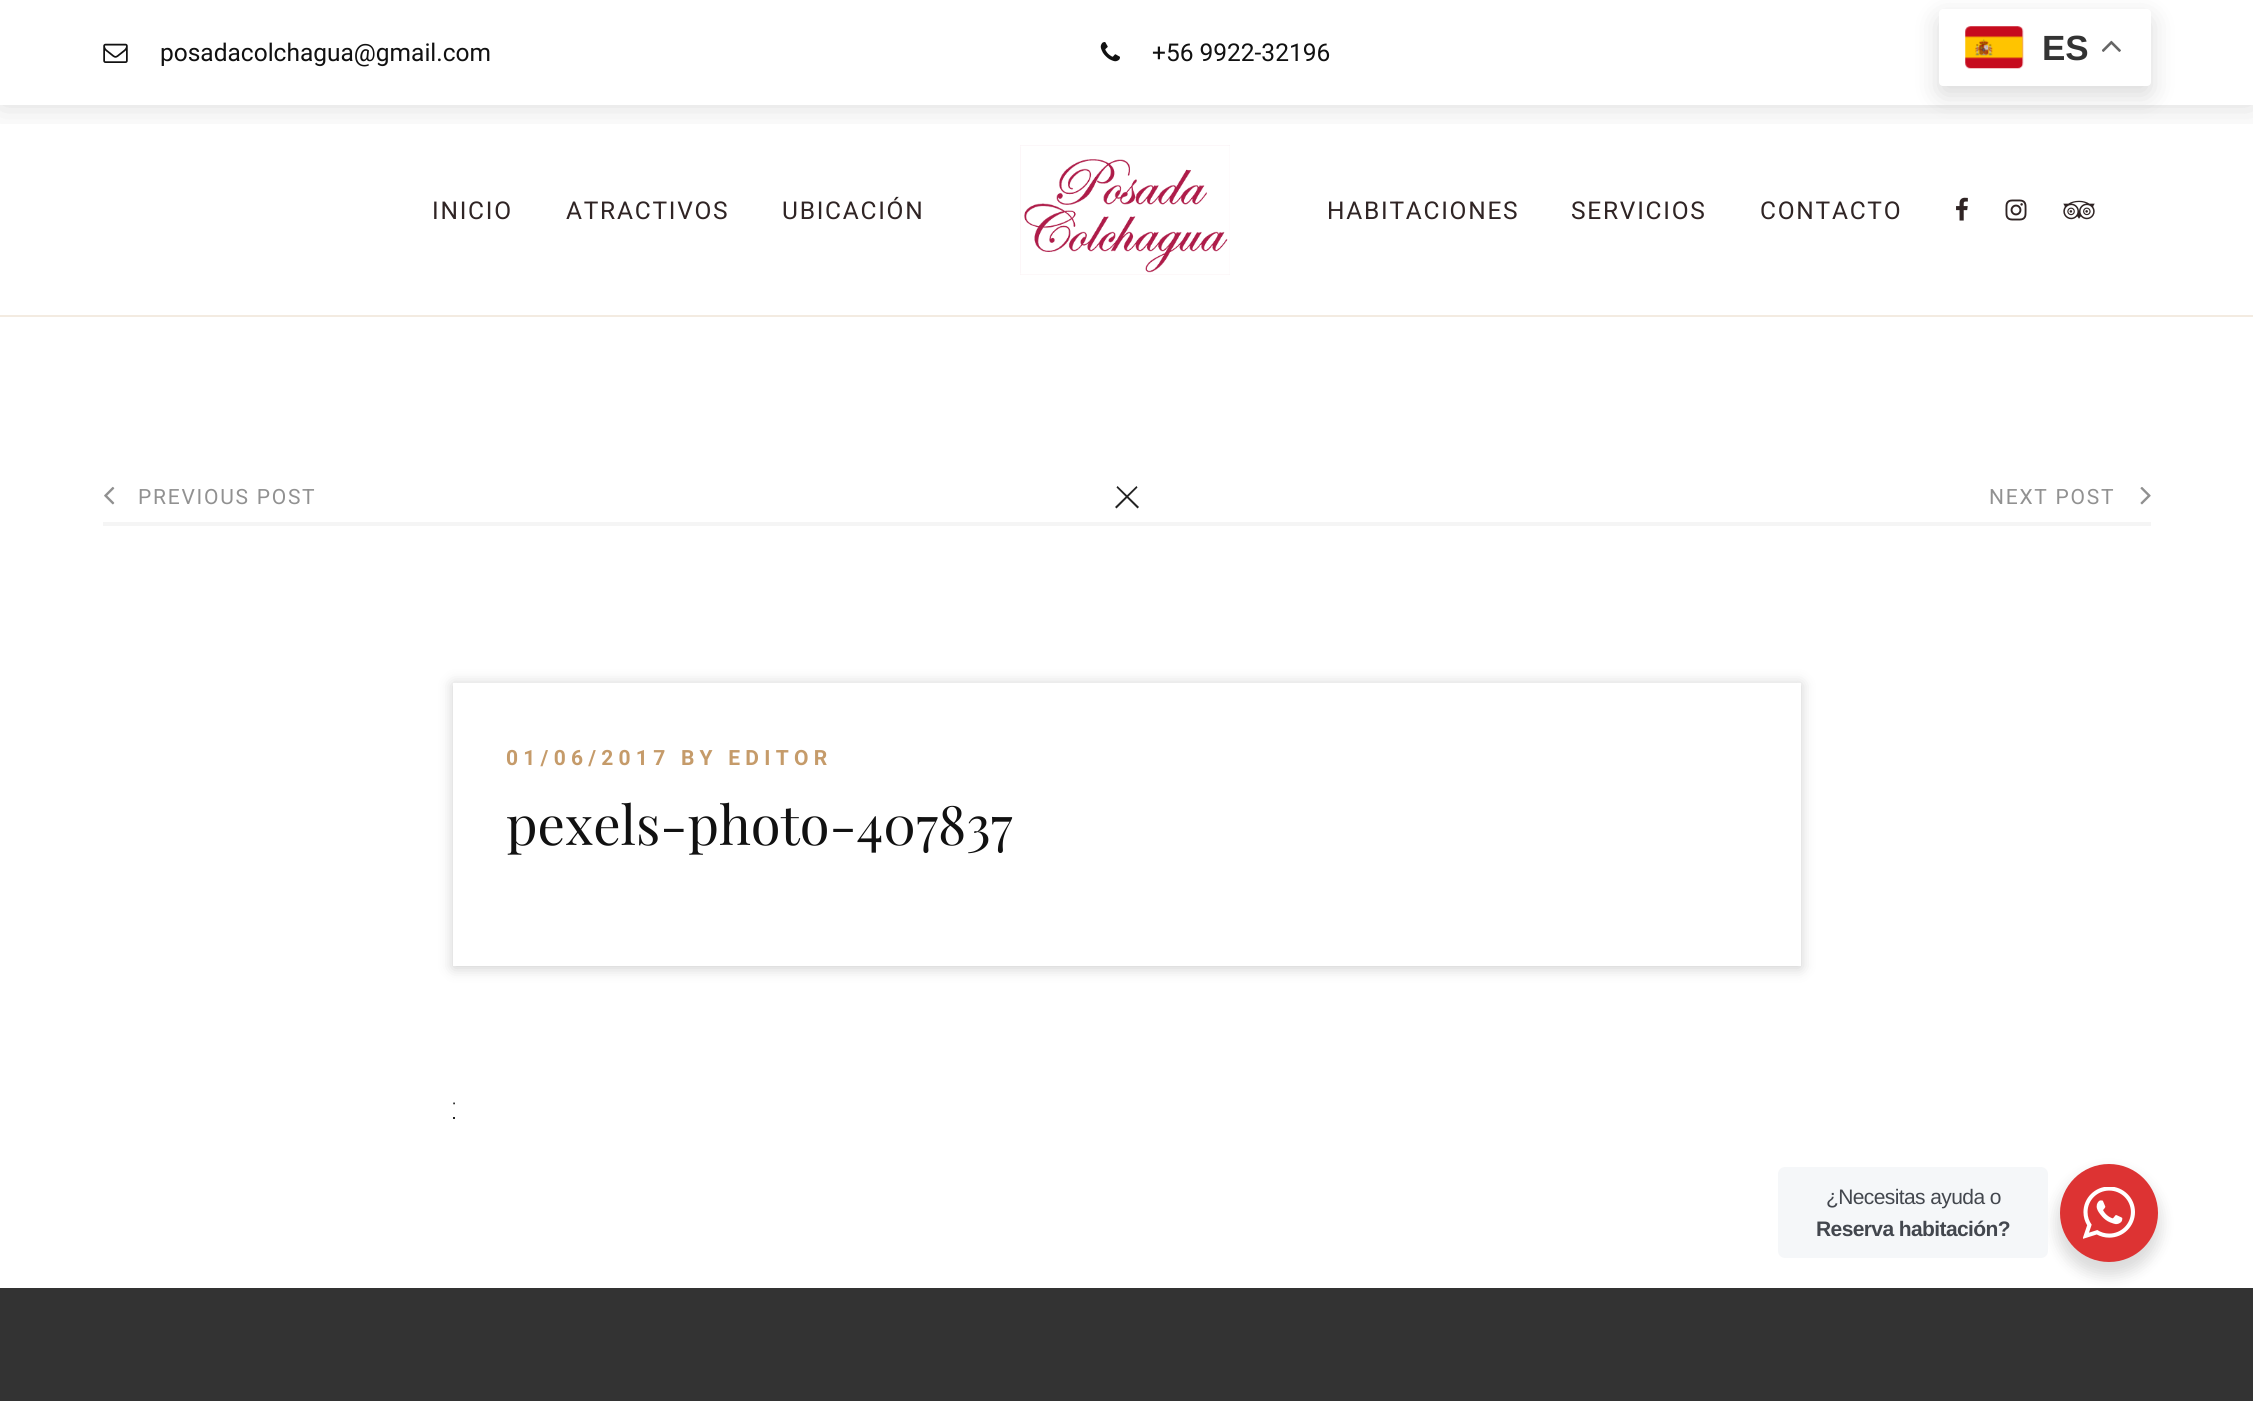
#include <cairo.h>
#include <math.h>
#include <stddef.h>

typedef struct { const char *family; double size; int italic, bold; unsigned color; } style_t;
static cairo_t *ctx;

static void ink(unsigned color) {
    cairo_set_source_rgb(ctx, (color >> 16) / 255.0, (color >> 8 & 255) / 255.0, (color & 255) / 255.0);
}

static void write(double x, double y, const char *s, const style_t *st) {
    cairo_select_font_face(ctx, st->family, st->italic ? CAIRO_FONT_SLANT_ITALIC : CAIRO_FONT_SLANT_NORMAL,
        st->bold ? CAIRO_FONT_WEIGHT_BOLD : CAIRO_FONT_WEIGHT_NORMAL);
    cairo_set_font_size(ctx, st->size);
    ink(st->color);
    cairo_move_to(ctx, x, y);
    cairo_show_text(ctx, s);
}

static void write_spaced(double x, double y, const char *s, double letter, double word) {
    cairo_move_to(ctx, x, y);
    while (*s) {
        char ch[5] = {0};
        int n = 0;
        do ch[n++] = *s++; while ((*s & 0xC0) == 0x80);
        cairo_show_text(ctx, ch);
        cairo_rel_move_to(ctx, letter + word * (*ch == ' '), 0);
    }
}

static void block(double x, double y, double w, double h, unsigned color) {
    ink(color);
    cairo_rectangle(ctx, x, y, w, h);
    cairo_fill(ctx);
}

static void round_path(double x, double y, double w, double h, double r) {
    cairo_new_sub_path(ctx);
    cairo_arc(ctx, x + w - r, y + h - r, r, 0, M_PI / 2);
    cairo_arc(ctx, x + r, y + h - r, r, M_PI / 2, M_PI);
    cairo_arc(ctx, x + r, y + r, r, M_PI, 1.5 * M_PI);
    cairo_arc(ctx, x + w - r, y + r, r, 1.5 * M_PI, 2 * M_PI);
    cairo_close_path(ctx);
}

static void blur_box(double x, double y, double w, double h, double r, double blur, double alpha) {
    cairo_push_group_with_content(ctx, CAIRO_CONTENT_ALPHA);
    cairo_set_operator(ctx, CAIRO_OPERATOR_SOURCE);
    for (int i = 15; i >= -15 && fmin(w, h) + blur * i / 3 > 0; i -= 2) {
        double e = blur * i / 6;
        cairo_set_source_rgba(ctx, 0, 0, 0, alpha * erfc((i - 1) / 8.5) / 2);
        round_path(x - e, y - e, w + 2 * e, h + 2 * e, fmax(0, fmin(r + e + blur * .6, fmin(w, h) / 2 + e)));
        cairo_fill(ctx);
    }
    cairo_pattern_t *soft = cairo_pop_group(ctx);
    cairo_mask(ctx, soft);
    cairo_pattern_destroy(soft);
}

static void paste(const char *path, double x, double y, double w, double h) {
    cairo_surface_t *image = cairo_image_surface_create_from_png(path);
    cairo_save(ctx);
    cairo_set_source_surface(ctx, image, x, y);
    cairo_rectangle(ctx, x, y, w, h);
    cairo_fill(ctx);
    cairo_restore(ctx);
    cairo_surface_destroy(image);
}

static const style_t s1 = {"Roboto", 24.5, 0, 0, 0x111111};
static const style_t s2 = {"Liberation Sans", 35, 0, 1, 0x333333};
static const style_t s3 = {"Playfair Display", 54.25, 0, 0, 0x111111};

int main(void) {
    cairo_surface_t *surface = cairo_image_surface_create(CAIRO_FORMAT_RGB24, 2253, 1401);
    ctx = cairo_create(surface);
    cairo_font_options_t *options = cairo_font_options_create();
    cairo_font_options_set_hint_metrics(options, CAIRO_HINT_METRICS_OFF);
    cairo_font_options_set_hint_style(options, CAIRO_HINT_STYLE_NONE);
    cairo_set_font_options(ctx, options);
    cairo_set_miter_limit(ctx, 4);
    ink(0xffffff);
    cairo_paint(ctx);
    paste("pic5.png", 1020, 145, 210, 130);
    cairo_save(ctx);
    cairo_rectangle(ctx, 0, 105, 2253, 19);
    cairo_clip(ctx);
    ink(0x000000);
    blur_box(0, 0, 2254, 105, 0, 17.5, 0.15);
    cairo_restore(ctx);
    paste("pic1.png", 103, 43, 25, 20);
    write(160, 61, "posadacolchagua@gmail.com", &s1);
    paste("pic2.png", 1100, 42, 20, 20);
    write(1152, 61, "+56 9922-32196", &s1);
    ink(0x000000);
    blur_box(1939, 18, 212, 77, 4, 13, 0.15);
    ink(0xffffff);
    round_path(1939, 9, 212, 77, 4);
    cairo_fill(ctx);
    paste("pic3.png", 1965, 26, 59, 43);
    write(2042, 60, "ES", &s2);
    paste("pic4.png", 2102, 40, 19, 12);
    cairo_select_font_face(ctx, "Roboto", CAIRO_FONT_SLANT_NORMAL, CAIRO_FONT_WEIGHT_NORMAL);
    cairo_set_font_size(ctx, 24.5);
    ink(0x2f2424);
    write_spaced(432, 219, "INICIO", 1.75, 0);
    write_spaced(566, 219, "ATRACTIVOS", 1.75, 0);
    write_spaced(782, 219, "UBICACIÓN", 1.75, 0);
    write_spaced(1327, 219, "HABITACIONES", 1.75, 0);
    write_spaced(1571, 219, "SERVICIOS", 1.75, 0);
    write_spaced(1760, 219, "CONTACTO", 1.75, 0);
    paste("pic6.png", 1956, 197, 12, 24);
    paste("pic7.png", 2005, 199, 22, 22);
    paste("pic8.png", 2063, 200, 32, 20);
    block(0, 315, 2253, 2, 0xf3ebe1);
    block(103, 522, 2048, 4, 0xf5f5f5);
    paste("pic9.png", 104, 486, 11, 19);
    cairo_set_font_size(ctx, 21);
    ink(0x919191);
    write_spaced(138, 504, "PREVIOUS POST", 1.75, 0);
    ink(0x222222);
    cairo_new_path(ctx);
    cairo_move_to(ctx, 1117.5, 486);
    cairo_line_to(ctx, 1139, 507);
    cairo_line_to(ctx, 1137.5, 508.5);
    cairo_line_to(ctx, 1116.5, 487.5);
    cairo_close_path(ctx);
    cairo_fill(ctx);
    cairo_new_path(ctx);
    cairo_move_to(ctx, 1136.5, 486);
    cairo_line_to(ctx, 1137.5, 487.5);
    cairo_line_to(ctx, 1116.5, 508.5);
    cairo_line_to(ctx, 1115, 507);
    cairo_close_path(ctx);
    cairo_fill(ctx);
    ink(0x919191);
    write_spaced(1989, 504, "NEXT POST", 1.75, 0);
    paste("pic10.png", 2140, 487, 11, 18);
    ink(0x000000);
    blur_box(453, 684, 1348, 284, 0, 7, 0.2);
    block(453, 683, 1348, 283, 0xffffff);
    cairo_select_font_face(ctx, "Roboto", CAIRO_FONT_SLANT_NORMAL, CAIRO_FONT_WEIGHT_BOLD);
    ink(0xc59b6a);
    write_spaced(506, 765, "01/06/2017 BY EDITOR", 5.25, 0);
    write(506, 845, "pexels-photo-407837", &s3);
    block(453, 1117, 2, 2, 0x222222);
    paste("pic11.png", 453, 1102, 2, 3);
    block(0, 1288, 2253, 113, 0x333333);
    ink(0x000000);
    blur_box(2056, 1171, 105, 105, 52.5, 7, 0.14);
    ink(0xf5f7f9);
    round_path(1778, 1167, 270, 91, 7);
    cairo_fill(ctx);
    cairo_select_font_face(ctx, "Liberation Sans", CAIRO_FONT_SLANT_NORMAL, CAIRO_FONT_WEIGHT_NORMAL);
    cairo_set_font_size(ctx, 21);
    ink(0x43474e);
    write_spaced(1826, 1204, "¿Necesitas ayuda o", -0.6, 0);
    cairo_select_font_face(ctx, "Liberation Sans", CAIRO_FONT_SLANT_NORMAL, CAIRO_FONT_WEIGHT_BOLD);
    write_spaced(1816, 1236, "Reserva habitación?", -0.6, 0);
    ink(0xdd3333);
    cairo_new_path(ctx);
    cairo_arc(ctx, 2109, 1213, 49, 0, 2 * M_PI);
    cairo_fill(ctx);
    paste("pic12.png", 2083, 1187, 52, 52);
    cairo_surface_write_to_png(surface, "screenshot.png");
    cairo_font_options_destroy(options);
    cairo_destroy(ctx);
    cairo_surface_destroy(surface);
    return 0;
}
